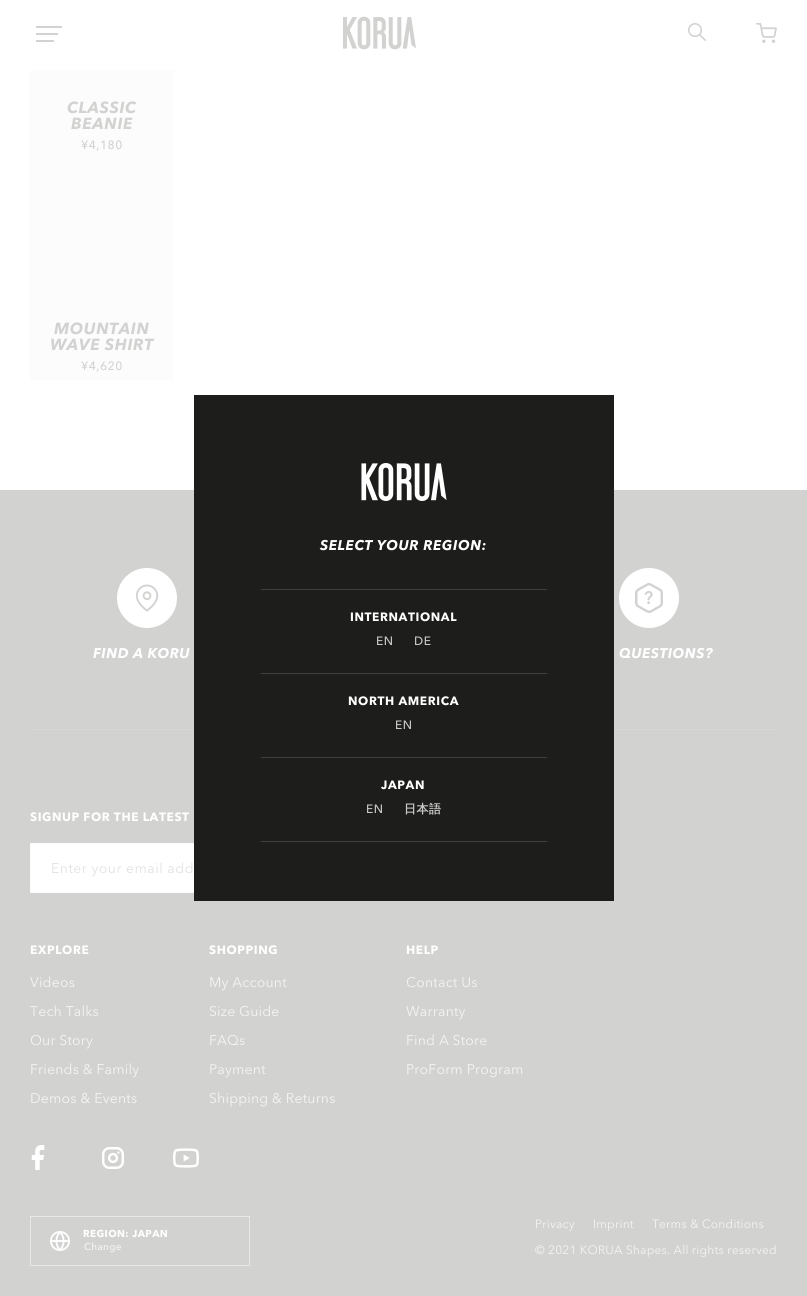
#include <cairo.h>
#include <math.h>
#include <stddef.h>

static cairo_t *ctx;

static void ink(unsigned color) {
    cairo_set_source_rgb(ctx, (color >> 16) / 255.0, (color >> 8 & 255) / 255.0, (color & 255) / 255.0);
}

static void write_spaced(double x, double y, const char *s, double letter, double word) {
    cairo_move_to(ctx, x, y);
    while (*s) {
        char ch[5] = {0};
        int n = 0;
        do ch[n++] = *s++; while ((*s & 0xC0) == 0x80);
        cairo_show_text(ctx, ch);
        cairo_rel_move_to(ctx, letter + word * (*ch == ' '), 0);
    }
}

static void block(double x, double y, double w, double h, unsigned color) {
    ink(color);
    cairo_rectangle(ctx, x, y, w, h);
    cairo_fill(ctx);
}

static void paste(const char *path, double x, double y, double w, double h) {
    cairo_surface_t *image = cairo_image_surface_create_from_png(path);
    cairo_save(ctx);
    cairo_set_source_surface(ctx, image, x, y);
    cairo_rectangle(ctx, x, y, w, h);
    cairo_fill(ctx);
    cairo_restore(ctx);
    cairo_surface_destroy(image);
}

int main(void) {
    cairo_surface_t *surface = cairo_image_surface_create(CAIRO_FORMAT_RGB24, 807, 1296);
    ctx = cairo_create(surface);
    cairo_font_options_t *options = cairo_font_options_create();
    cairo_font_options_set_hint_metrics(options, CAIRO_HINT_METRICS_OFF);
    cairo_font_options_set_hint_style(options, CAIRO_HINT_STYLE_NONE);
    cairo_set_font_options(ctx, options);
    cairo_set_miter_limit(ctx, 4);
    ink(0xffffff);
    cairo_paint(ctx);
    paste("pic1.png", 36, 26, 26, 16);
    paste("pic2.png", 343, 16, 73, 34);
    paste("pic3.png", 688, 23, 18, 18);
    paste("pic4.png", 756, 23, 21, 20);
    block(30, 70, 144, 310, 0xfcfcfc);
    cairo_select_font_face(ctx, "avenir", CAIRO_FONT_SLANT_ITALIC, CAIRO_FONT_WEIGHT_BOLD);
    cairo_set_font_size(ctx, 16);
    ink(0xd2d2d1);
    write_spaced(67, 113, "CLASSIC", 0.6, 0);
    write_spaced(71, 129, "BEANIE", 0.6, 0);
    cairo_select_font_face(ctx, "avenir Medium", CAIRO_FONT_SLANT_NORMAL, CAIRO_FONT_WEIGHT_NORMAL);
    cairo_set_font_size(ctx, 12);
    write_spaced(81, 149, "¥4,180", 0.5, 0);
    cairo_select_font_face(ctx, "avenir", CAIRO_FONT_SLANT_ITALIC, CAIRO_FONT_WEIGHT_BOLD);
    cairo_set_font_size(ctx, 16);
    write_spaced(54, 334, "MOUNTAIN", 0.6, 0);
    write_spaced(50, 350, "WAVE SHIRT", 0.6, 0);
    cairo_select_font_face(ctx, "avenir Medium", CAIRO_FONT_SLANT_NORMAL, CAIRO_FONT_WEIGHT_NORMAL);
    cairo_set_font_size(ctx, 12);
    write_spaced(81, 370, "¥4,620", 0.5, 0);
    block(0, 490, 807, 806, 0xd2d2d1);
    block(30, 729, 747, 1, 0xd6d6d6);
    paste("pic5.png", 117, 568, 60, 60);
    cairo_select_font_face(ctx, "avenir", CAIRO_FONT_SLANT_ITALIC, CAIRO_FONT_WEIGHT_BOLD);
    cairo_set_font_size(ctx, 14);
    ink(0xffffff);
    write_spaced(93, 658, "FIND A KORU", 0.5, 0);
    paste("pic6.png", 619, 568, 60, 60);
    write_spaced(619, 658, "QUESTIONS?", 0.5, 0);
    cairo_select_font_face(ctx, "avenir", CAIRO_FONT_SLANT_NORMAL, CAIRO_FONT_WEIGHT_BOLD);
    cairo_set_font_size(ctx, 12);
    write_spaced(30, 821, "SIGNUP FOR THE LATEST", 0.6, 0);
    block(31, 844, 163, 48, 0xffffff);
    cairo_rectangle(ctx, 30.5, 843.5, 449, 49);
    ink(0xfcfcfc);
    cairo_set_line_width(ctx, 1);
    cairo_stroke(ctx);
    cairo_select_font_face(ctx, "avenir", CAIRO_FONT_SLANT_NORMAL, CAIRO_FONT_WEIGHT_NORMAL);
    cairo_set_font_size(ctx, 14);
    ink(0xe2e2e2);
    write_spaced(51, 873, "Enter your email add", 0.5, 0);
    cairo_select_font_face(ctx, "avenir", CAIRO_FONT_SLANT_NORMAL, CAIRO_FONT_WEIGHT_BOLD);
    cairo_set_font_size(ctx, 12);
    ink(0xffffff);
    write_spaced(30, 954, "EXPLORE", 0.6, 0);
    cairo_select_font_face(ctx, "avenir", CAIRO_FONT_SLANT_NORMAL, CAIRO_FONT_WEIGHT_NORMAL);
    cairo_set_font_size(ctx, 14);
    ink(0xf4f4f4);
    write_spaced(30, 987, "Videos", 0.2, 0);
    write_spaced(30, 1016, "Tech Talks", 0.2, 0);
    write_spaced(30, 1045, "Our Story", 0.2, 0);
    write_spaced(30, 1074, "Friends & Family", 0.2, 0);
    write_spaced(30, 1103, "Demos & Events", 0.2, 0);
    cairo_select_font_face(ctx, "avenir", CAIRO_FONT_SLANT_NORMAL, CAIRO_FONT_WEIGHT_BOLD);
    cairo_set_font_size(ctx, 12);
    ink(0xffffff);
    write_spaced(209, 954, "SHOPPING", 0.6, 0);
    cairo_select_font_face(ctx, "avenir", CAIRO_FONT_SLANT_NORMAL, CAIRO_FONT_WEIGHT_NORMAL);
    cairo_set_font_size(ctx, 14);
    ink(0xf4f4f4);
    write_spaced(209, 987, "My Account", 0.2, 0);
    write_spaced(209, 1016, "Size Guide", 0.2, 0);
    write_spaced(209, 1045, "FAQs", 0.2, 0);
    write_spaced(209, 1074, "Payment", 0.2, 0);
    write_spaced(209, 1103, "Shipping & Returns", 0.2, 0);
    cairo_select_font_face(ctx, "avenir", CAIRO_FONT_SLANT_NORMAL, CAIRO_FONT_WEIGHT_BOLD);
    cairo_set_font_size(ctx, 12);
    ink(0xffffff);
    write_spaced(406, 954, "HELP", 0.6, 0);
    cairo_select_font_face(ctx, "avenir", CAIRO_FONT_SLANT_NORMAL, CAIRO_FONT_WEIGHT_NORMAL);
    cairo_set_font_size(ctx, 14);
    ink(0xf4f4f4);
    write_spaced(406, 987, "Contact Us", 0.2, 0);
    write_spaced(406, 1016, "Warranty", 0.2, 0);
    write_spaced(406, 1045, "Find A Store", 0.2, 0);
    write_spaced(406, 1074, "ProForm Program", 0.2, 0);
    paste("pic7.png", 31, 1145, 14, 25);
    paste("pic8.png", 102, 1147, 22, 22);
    paste("pic9.png", 173, 1148, 26, 20);
    cairo_rectangle(ctx, 30.5, 1216.5, 219, 49);
    ink(0xe8e8e8);
    cairo_stroke(ctx);
    paste("pic10.png", 50, 1231, 20, 20);
    cairo_select_font_face(ctx, "avenir", CAIRO_FONT_SLANT_NORMAL, CAIRO_FONT_WEIGHT_BOLD);
    cairo_set_font_size(ctx, 10);
    ink(0xffffff);
    write_spaced(83, 1237, "REGION: JAPAN", 0.4, 0);
    cairo_select_font_face(ctx, "avenir Medium", CAIRO_FONT_SLANT_NORMAL, CAIRO_FONT_WEIGHT_NORMAL);
    ink(0xf4f4f4);
    write_spaced(84, 1250, "Change", 0.25, 0);
    cairo_select_font_face(ctx, "avenir", CAIRO_FONT_SLANT_NORMAL, CAIRO_FONT_WEIGHT_NORMAL);
    cairo_set_font_size(ctx, 12);
    write_spaced(535, 1228, "Privacy", 0.2, 0);
    write_spaced(593, 1228, "Imprint", 0.2, 0);
    write_spaced(652, 1228, "Terms & Conditions", 0.2, 0);
    write_spaced(535, 1254, "© 2021 KORUA Shapes. All rights reserved", 0.2, 0);
    block(194, 395, 420, 506, 0x1d1d1b);
    paste("pic11.png", 361, 463, 86, 38);
    cairo_select_font_face(ctx, "avenir", CAIRO_FONT_SLANT_ITALIC, CAIRO_FONT_WEIGHT_BOLD);
    cairo_set_font_size(ctx, 14);
    ink(0xffffff);
    write_spaced(320, 550, "SELECT YOUR REGION:", 0.6, 0);
    block(261, 589, 286, 1, 0x3f3f3d);
    block(261, 673, 286, 1, 0x3f3f3d);
    cairo_select_font_face(ctx, "avenir", CAIRO_FONT_SLANT_NORMAL, CAIRO_FONT_WEIGHT_BOLD);
    cairo_set_font_size(ctx, 12);
    ink(0xffffff);
    write_spaced(350, 621, "INTERNATIONAL", 0.6, 0);
    cairo_select_font_face(ctx, "avenir Medium", CAIRO_FONT_SLANT_NORMAL, CAIRO_FONT_WEIGHT_NORMAL);
    ink(0xc9c9c9);
    write_spaced(376, 645, "EN", 0.5, 0);
    write_spaced(414, 645, "DE", 0.5, 0);
    block(261, 757, 286, 1, 0x3f3f3d);
    cairo_select_font_face(ctx, "avenir", CAIRO_FONT_SLANT_NORMAL, CAIRO_FONT_WEIGHT_BOLD);
    ink(0xffffff);
    write_spaced(348, 705, "NORTH AMERICA", 0.6, 0);
    cairo_select_font_face(ctx, "avenir Medium", CAIRO_FONT_SLANT_NORMAL, CAIRO_FONT_WEIGHT_NORMAL);
    ink(0xc9c9c9);
    write_spaced(395, 729, "EN", 0.5, 0);
    block(261, 841, 286, 1, 0x3f3f3d);
    cairo_select_font_face(ctx, "avenir", CAIRO_FONT_SLANT_NORMAL, CAIRO_FONT_WEIGHT_BOLD);
    ink(0xffffff);
    write_spaced(381, 789, "JAPAN", 0.6, 0);
    cairo_select_font_face(ctx, "avenir Medium", CAIRO_FONT_SLANT_NORMAL, CAIRO_FONT_WEIGHT_NORMAL);
    ink(0xc9c9c9);
    write_spaced(366, 813, "EN", 0.5, 0);
    cairo_select_font_face(ctx, "WenQuanYi Zen Hei", CAIRO_FONT_SLANT_NORMAL, CAIRO_FONT_WEIGHT_BOLD);
    write_spaced(404, 813, "日本語", 0.5, 0);
    cairo_surface_write_to_png(surface, "screenshot.png");
    cairo_font_options_destroy(options);
    cairo_destroy(ctx);
    cairo_surface_destroy(surface);
    return 0;
}
